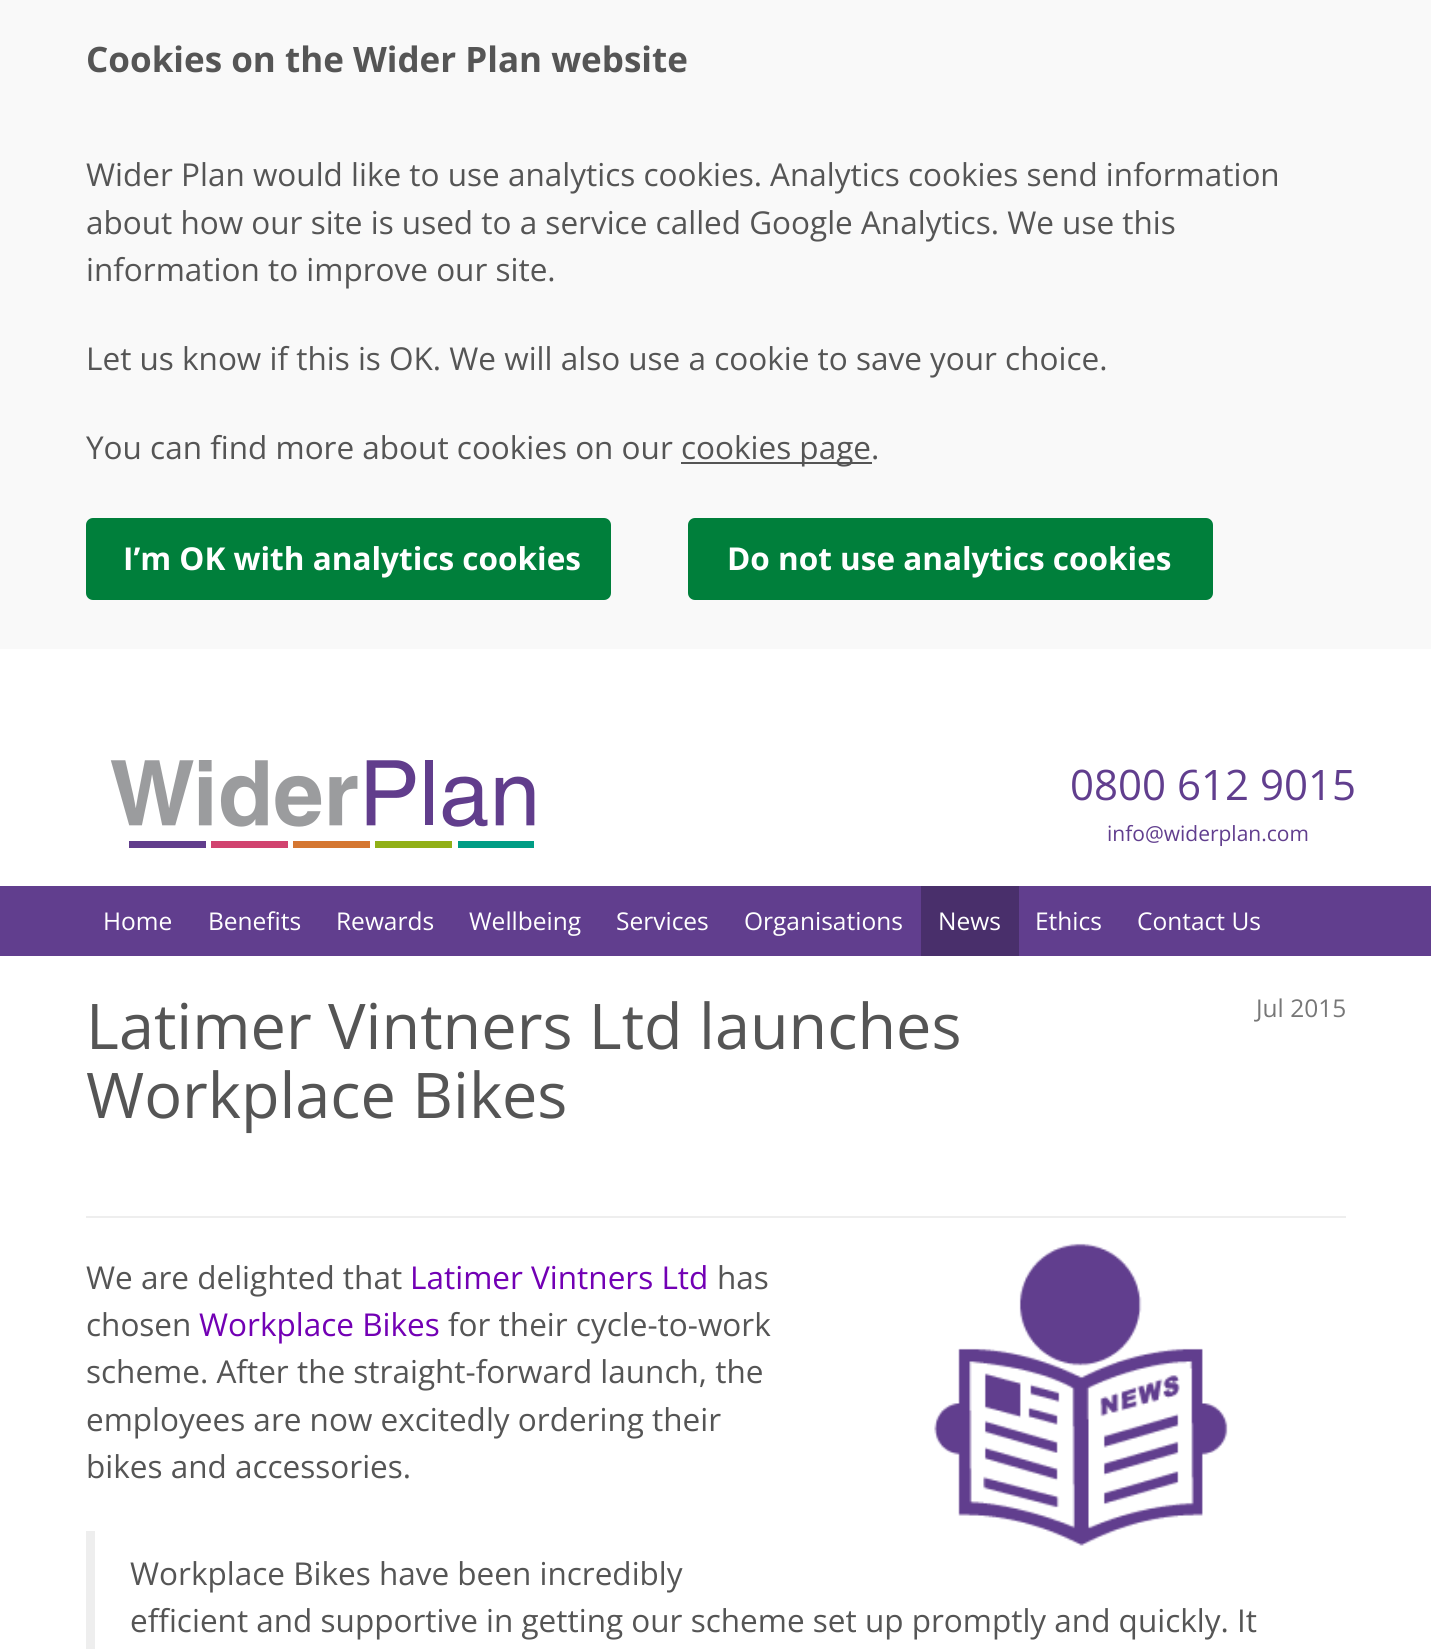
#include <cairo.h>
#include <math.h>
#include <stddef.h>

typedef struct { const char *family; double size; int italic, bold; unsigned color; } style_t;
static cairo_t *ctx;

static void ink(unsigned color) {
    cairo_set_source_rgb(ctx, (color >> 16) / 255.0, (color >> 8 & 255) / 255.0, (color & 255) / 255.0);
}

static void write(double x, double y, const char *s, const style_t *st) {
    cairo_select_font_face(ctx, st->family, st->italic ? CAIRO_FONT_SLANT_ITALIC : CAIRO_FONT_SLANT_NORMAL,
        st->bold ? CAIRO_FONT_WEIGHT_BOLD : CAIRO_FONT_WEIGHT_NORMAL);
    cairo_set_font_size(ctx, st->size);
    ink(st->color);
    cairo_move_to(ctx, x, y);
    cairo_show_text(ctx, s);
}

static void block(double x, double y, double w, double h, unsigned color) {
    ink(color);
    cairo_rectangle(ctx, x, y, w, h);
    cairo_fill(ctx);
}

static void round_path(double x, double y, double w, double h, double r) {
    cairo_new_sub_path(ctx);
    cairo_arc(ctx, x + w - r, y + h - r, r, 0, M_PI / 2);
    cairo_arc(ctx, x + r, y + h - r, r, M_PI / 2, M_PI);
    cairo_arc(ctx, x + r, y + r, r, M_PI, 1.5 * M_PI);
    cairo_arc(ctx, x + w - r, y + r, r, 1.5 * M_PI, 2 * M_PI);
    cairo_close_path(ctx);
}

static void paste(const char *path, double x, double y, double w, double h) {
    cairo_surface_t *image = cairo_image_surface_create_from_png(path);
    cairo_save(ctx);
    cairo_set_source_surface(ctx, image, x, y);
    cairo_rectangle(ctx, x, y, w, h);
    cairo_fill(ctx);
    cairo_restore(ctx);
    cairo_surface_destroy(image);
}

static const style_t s1 = {"Open Sans", 35, 0, 1, 0x555555};
static const style_t s2 = {"Open Sans", 31.5, 0, 0, 0x555555};
static const style_t s3 = {"Open Sans", 31.5, 0, 1, 0xffffff};
static const style_t s4 = {"Open Sans", 42, 0, 0, 0x613e8e};
static const style_t s5 = {"Open Sans", 21, 0, 0, 0x613e8e};
static const style_t s6 = {"Open Sans", 24.5, 0, 0, 0xffffff};
static const style_t s7 = {"Open Sans", 63, 0, 0, 0x555555};
static const style_t s8 = {"Open Sans", 24.5, 0, 0, 0x777777};
static const style_t s9 = {"Open Sans", 31.5, 0, 0, 0x7200b4};

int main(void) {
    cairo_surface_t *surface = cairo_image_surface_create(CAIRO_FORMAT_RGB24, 1431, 1649);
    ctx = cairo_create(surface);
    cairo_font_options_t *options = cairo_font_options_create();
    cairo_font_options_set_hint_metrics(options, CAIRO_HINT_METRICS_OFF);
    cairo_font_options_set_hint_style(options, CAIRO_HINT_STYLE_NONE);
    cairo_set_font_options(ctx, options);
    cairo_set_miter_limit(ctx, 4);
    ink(0xffffff);
    cairo_paint(ctx);
    block(0, 0, 1431, 649, 0xf9f9f9);
    write(86, 72, "Cookies on the Wider Plan website", &s1);
    write(86, 186, "Wider Plan would like to use analytics cookies. Analytics cookies send information", &s2);
    write(86, 234, "about how our site is used to a service called Google Analytics. We use this", &s2);
    write(86, 281, "information to improve our site.", &s2);
    write(86, 370, "Let us know if this is OK. We will also use a cookie to save your choice.", &s2);
    write(86, 459, "You can find more about cookies on our", &s2);
    block(681, 462, 191, 2, 0x555555);
    write(681, 459, "cookies page.", &s2);
    ink(0x007f3b);
    round_path(86, 518, 525, 82, 7);
    cairo_fill(ctx);
    write(123, 570, "I’m OK with analytics cookies", &s3);
    ink(0x007f3b);
    round_path(688, 518, 525, 82, 7);
    cairo_fill(ctx);
    write(727, 570, "Do not use analytics cookies", &s3);
    paste("pic1.png", 110, 760, 425, 88);
    write(1070, 800, "0800 612 9015", &s4);
    write(1107, 841, "info@widerplan.com", &s5);
    block(0, 886, 1431, 70, 0x613e8e);
    write(103, 930, "Home", &s6);
    write(208, 930, "Benefits", &s6);
    write(336, 930, "Rewards", &s6);
    write(469, 930, "Wellbeing", &s6);
    write(616, 930, "Services", &s6);
    write(744, 930, "Organisations", &s6);
    block(921, 886, 98, 70, 0x492f6b);
    write(938, 930, "News", &s6);
    write(1035, 930, "Ethics", &s6);
    write(1137, 930, "Contact Us", &s6);
    write(86, 1049, "Latimer Vintners Ltd launches", &s7);
    write(86, 1118, "Workplace Bikes", &s7);
    write(1256, 1017, "Jul 2015", &s8);
    paste("pic2.png", 934, 1243, 294, 303);
    block(86, 1216, 1260, 2, 0xeeeeee);
    write(86, 1289, "We are delighted that", &s2);
    write(410, 1289, "Latimer Vintners Ltd", &s9);
    write(717, 1289, "has", &s2);
    write(86, 1336, "chosen", &s2);
    write(199, 1336, "Workplace Bikes", &s9);
    write(448, 1336, "for their cycle-to-work", &s2);
    write(86, 1383, "scheme. After the straight-forward launch, the", &s2);
    write(86, 1431, "employees are now excitedly ordering their", &s2);
    write(86, 1478, "bikes and accessories.", &s2);
    block(86, 1531, 9, 118, 0xeeeeee);
    write(130, 1585, "Workplace Bikes have been incredibly", &s2);
    write(130, 1632, "efficient and supportive in getting our scheme set up promptly and quickly. It", &s2);
    cairo_surface_write_to_png(surface, "screenshot.png");
    cairo_font_options_destroy(options);
    cairo_destroy(ctx);
    cairo_surface_destroy(surface);
    return 0;
}
